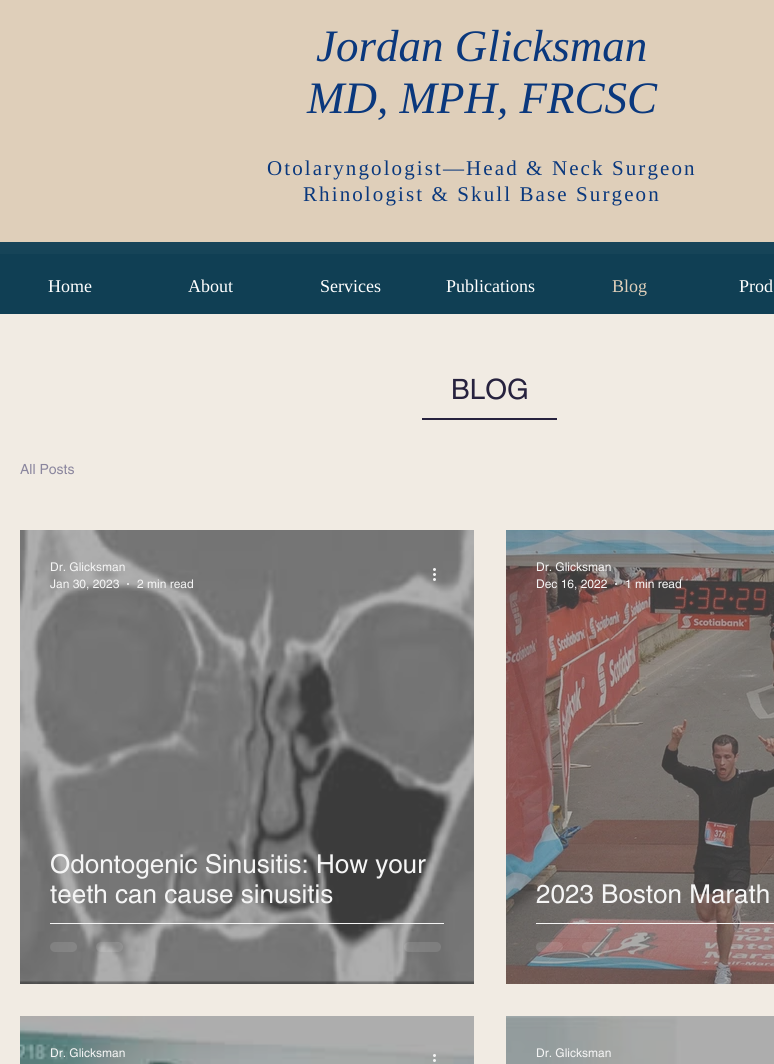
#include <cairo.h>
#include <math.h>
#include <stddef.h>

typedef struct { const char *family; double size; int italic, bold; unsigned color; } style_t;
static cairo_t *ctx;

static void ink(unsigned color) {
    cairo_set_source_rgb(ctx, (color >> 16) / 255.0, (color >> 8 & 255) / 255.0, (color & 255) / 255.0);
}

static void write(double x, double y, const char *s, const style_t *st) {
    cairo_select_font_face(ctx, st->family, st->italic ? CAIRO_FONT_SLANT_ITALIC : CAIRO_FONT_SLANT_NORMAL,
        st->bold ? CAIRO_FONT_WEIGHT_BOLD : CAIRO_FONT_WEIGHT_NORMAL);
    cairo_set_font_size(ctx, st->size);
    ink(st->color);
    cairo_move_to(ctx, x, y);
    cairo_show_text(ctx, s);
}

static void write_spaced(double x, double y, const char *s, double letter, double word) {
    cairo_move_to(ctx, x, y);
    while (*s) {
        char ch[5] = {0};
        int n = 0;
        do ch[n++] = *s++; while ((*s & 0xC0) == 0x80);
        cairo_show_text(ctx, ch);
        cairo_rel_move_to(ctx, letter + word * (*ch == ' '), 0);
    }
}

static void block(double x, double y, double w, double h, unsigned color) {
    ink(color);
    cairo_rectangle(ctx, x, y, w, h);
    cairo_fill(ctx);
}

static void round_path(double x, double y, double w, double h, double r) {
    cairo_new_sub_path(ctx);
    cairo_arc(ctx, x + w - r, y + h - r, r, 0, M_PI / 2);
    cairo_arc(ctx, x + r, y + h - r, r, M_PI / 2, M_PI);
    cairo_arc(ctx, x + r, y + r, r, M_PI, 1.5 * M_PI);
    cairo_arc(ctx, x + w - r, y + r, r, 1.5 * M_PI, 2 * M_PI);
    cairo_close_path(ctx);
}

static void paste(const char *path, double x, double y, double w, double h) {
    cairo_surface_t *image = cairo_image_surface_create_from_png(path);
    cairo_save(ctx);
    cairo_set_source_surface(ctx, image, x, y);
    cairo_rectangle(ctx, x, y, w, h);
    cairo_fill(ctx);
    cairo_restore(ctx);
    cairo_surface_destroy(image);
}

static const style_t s1 = {"Liberation Serif", 45, 1, 0, 0x0a387d};
static const style_t s2 = {"Liberation Serif", 18, 0, 0, 0xffffff};
static const style_t s3 = {"Liberation Serif", 18, 0, 0, 0xdfcfba};
static const style_t s4 = {"helvetica", 28, 0, 0, 0x27223e};
static const style_t s5 = {"helvetica", 14, 0, 0, 0x8b869e};
static const style_t s6 = {"helvetica", 12, 0, 0, 0xf5f5f5};
static const style_t s7 = {"helvetica", 26, 0, 0, 0xf5f5f5};

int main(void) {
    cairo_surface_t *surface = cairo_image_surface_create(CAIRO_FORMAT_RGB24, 774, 1064);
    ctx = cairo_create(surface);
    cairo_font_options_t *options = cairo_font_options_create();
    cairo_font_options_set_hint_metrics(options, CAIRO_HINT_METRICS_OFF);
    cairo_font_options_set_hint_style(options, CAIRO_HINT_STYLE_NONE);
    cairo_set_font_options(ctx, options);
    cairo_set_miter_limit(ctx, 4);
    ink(0xf1ebe3);
    cairo_paint(ctx);
    block(0, 0, 774, 242, 0xdfcfba);
    write(316, 61, "Jordan Glicksman", &s1);
    write(307, 113, "MD, MPH, FRCSC", &s1);
    cairo_select_font_face(ctx, "Liberation Serif", CAIRO_FONT_SLANT_NORMAL, CAIRO_FONT_WEIGHT_NORMAL);
    cairo_set_font_size(ctx, 21);
    write_spaced(267, 175, "Otolaryngologist—Head & Neck Surgeon", 2.1, 0);
    write_spaced(303, 201, "Rhinologist & Skull Base Surgeon", 2.1, 0);
    block(0, 242, 774, 72, 0x103f54);
    write(48, 292, "Home", &s2);
    write(188, 292, "About", &s2);
    write(320, 292, "Services", &s2);
    write(446, 292, "Publications", &s2);
    write(612, 292, "Blog", &s3);
    write(739, 292, "Prod", &s2);
    paste("pic1.png", 0, 242, 774, 12);
    write(451, 399, "BLOG", &s4);
    block(422, 418, 135, 2, 0x27223e);
    write(20, 474, "All Posts", &s5);
    paste("pic2.png", 20, 530, 454, 454);
    write(50, 571, "Dr. Glicksman", &s6);
    write(50, 588, "Jan 30, 2023", &s6);
    cairo_new_path(ctx);
    cairo_arc(ctx, 128, 584, 1, 0, 2 * M_PI);
    cairo_fill(ctx);
    write(137, 588, "2 min read", &s6);
    paste("pic3.png", 433, 568, 3, 13);
    write(50, 873, "Odontogenic Sinusitis: How your", &s7);
    write(50, 903, "teeth can cause sinusitis", &s7);
    block(50, 923, 394, 1, 0xf5f5f5);
    cairo_set_source_rgba(ctx, 0.961, 0.961, 0.961, 0.12);
    round_path(50, 942, 27, 10, 5);
    cairo_fill(ctx);
    round_path(96, 942, 27, 10, 5);
    cairo_fill(ctx);
    round_path(404, 942, 37, 10, 5);
    cairo_fill(ctx);
    paste("pic4.png", 506, 530, 268, 454);
    write(536, 571, "Dr. Glicksman", &s6);
    write(536, 588, "Dec 16, 2022", &s6);
    cairo_new_path(ctx);
    cairo_arc(ctx, 616, 584, 1, 0, 2 * M_PI);
    cairo_fill(ctx);
    write(625, 588, "1 min read", &s6);
    write(536, 903, "2023 Boston Marath", &s7);
    block(536, 923, 238, 1, 0xf5f5f5);
    cairo_set_source_rgba(ctx, 0.961, 0.961, 0.961, 0.12);
    round_path(536, 942, 27, 10, 5);
    cairo_fill(ctx);
    round_path(582, 942, 27, 10, 5);
    cairo_fill(ctx);
    paste("pic5.png", 20, 1016, 454, 48);
    write(50, 1057, "Dr. Glicksman", &s6);
    paste("pic6.png", 433, 1054, 3, 8);
    paste("pic7.png", 506, 1016, 268, 48);
    write(536, 1057, "Dr. Glicksman", &s6);
    cairo_surface_write_to_png(surface, "screenshot.png");
    cairo_font_options_destroy(options);
    cairo_destroy(ctx);
    cairo_surface_destroy(surface);
    return 0;
}
